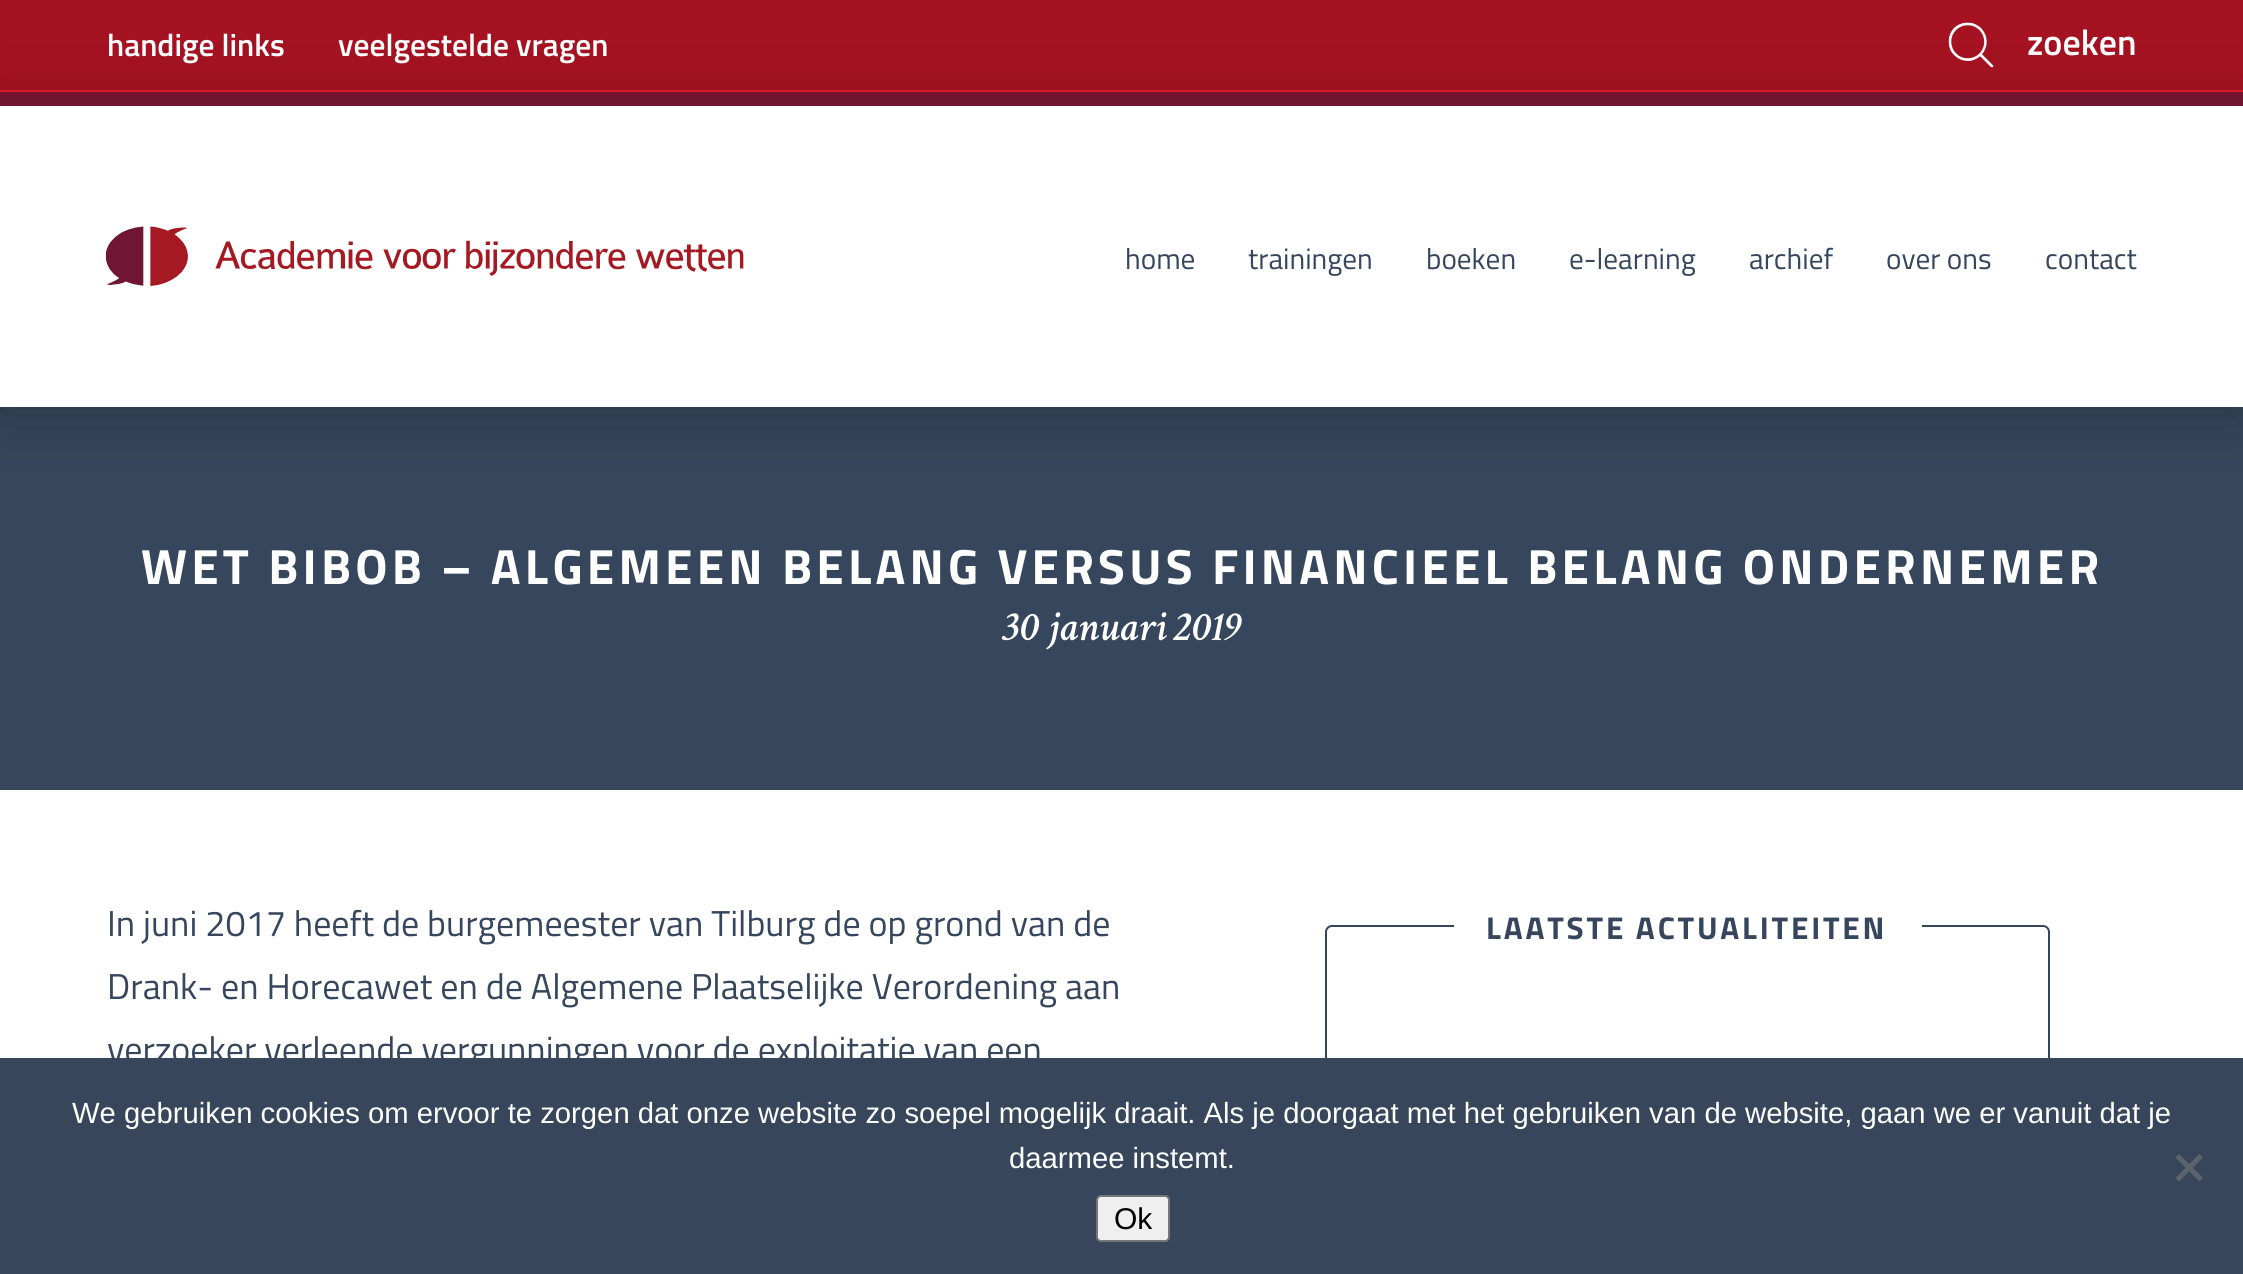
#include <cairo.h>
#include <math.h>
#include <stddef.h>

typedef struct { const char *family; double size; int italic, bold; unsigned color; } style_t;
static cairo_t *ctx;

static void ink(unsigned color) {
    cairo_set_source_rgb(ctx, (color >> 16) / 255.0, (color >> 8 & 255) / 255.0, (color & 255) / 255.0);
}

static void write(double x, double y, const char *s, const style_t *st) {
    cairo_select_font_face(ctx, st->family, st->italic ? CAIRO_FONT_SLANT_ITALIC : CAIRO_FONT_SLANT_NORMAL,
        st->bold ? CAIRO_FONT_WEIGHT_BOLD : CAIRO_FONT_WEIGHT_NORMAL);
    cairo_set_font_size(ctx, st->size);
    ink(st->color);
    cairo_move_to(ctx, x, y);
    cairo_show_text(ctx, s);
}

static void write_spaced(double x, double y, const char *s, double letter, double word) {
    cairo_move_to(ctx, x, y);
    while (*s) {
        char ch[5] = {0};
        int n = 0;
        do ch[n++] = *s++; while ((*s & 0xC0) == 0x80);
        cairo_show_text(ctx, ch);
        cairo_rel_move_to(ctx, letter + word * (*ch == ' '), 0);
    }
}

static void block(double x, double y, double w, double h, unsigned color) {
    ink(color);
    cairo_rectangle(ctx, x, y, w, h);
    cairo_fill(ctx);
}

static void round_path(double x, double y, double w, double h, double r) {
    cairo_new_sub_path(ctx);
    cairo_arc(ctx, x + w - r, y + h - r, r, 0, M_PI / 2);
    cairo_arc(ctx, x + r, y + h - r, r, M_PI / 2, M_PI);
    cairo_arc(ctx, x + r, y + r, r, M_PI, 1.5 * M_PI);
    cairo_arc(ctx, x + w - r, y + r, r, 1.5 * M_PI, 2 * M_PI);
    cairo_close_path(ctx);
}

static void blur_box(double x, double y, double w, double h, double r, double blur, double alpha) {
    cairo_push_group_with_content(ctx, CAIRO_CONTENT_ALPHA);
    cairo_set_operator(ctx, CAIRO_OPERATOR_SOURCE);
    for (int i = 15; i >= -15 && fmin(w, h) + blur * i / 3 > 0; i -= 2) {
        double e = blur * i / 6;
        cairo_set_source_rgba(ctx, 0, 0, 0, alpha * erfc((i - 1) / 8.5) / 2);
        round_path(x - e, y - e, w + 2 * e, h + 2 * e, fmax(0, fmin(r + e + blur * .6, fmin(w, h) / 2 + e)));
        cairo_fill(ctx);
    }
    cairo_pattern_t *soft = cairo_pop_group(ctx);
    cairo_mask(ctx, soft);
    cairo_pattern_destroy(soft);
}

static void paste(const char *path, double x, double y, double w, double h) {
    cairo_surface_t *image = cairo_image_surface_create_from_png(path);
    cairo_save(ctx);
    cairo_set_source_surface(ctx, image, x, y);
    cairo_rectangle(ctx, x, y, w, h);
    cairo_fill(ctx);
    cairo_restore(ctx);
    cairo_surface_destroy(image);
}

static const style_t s1 = {"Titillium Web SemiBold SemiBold", 31.5, 0, 0, 0xffffff};
static const style_t s2 = {"Titillium Web SemiBold SemiBold", 36, 0, 0, 0xffffff};
static const style_t s3 = {"Titillium Web", 29.25, 0, 0, 0x36465c};
static const style_t s4 = {"Crimson Text SemiBold", 42.75, 1, 0, 0xffffff};
static const style_t s5 = {"Titillium Web", 36, 0, 0, 0x36465c};
static const style_t s6 = {"Liberation Sans", 29.25, 0, 0, 0xffffff};
static const style_t s7 = {"Liberation Sans", 30, 0, 0, 0x000000};

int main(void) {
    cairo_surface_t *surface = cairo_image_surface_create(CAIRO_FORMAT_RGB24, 2243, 1274);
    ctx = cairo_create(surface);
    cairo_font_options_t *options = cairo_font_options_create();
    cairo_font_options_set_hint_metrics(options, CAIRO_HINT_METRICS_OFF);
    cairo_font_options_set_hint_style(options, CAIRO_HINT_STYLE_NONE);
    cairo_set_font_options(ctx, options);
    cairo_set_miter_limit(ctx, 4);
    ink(0xffffff);
    cairo_paint(ctx);
    block(0, 0, 2243, 90, 0xa51221);
    write(107, 56, "handige links", &s1);
    write(338, 56, "veelgestelde vragen", &s1);
    paste("pic1.png", 1948, 22, 46, 46);
    write(2027, 55, "zoeken", &s2);
    block(0, 407, 2243, 383, 0x36465c);
    cairo_save(ctx);
    cairo_set_fill_rule(ctx, CAIRO_FILL_RULE_EVEN_ODD);
    cairo_new_path(ctx);
    cairo_move_to(ctx, 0, 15);
    cairo_line_to(ctx, 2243, 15);
    cairo_line_to(ctx, 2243, 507);
    cairo_line_to(ctx, 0, 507);
    cairo_close_path(ctx);
    cairo_move_to(ctx, 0, 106);
    cairo_line_to(ctx, 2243, 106);
    cairo_line_to(ctx, 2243, 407);
    cairo_line_to(ctx, 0, 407);
    cairo_close_path(ctx);
    cairo_clip(ctx);
    ink(0x000000);
    blur_box(-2, 108, 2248, 306, 0, 30.5, 0.25);
    cairo_restore(ctx);
    block(0, 92, 2243, 14, 0x711432);
    block(0, 90, 2243, 2, 0xdc182c);
    paste("pic2.png", 105, 226, 639, 60);
    write(1125, 269, "home", &s3);
    write(1248, 269, "trainingen", &s3);
    write(1426, 269, "boeken", &s3);
    write(1569, 269, "e-learning", &s3);
    write(1749, 269, "archief", &s3);
    write(1886, 269, "over ons", &s3);
    write(2045, 269, "contact", &s3);
    cairo_select_font_face(ctx, "Titillium Web", CAIRO_FONT_SLANT_NORMAL, CAIRO_FONT_WEIGHT_BOLD);
    cairo_set_font_size(ctx, 49.5);
    ink(0xffffff);
    write_spaced(141, 584, "WET BIBOB – ALGEMEEN BELANG VERSUS FINANCIEEL BELANG ONDERNEMER", 4.2, 0);
    write(1002, 640, "30 januari 2019", &s4);
    write(107, 936, "In juni 2017 heeft de burgemeester van Tilburg de op grond van de", &s5);
    write(107, 999, "Drank- en Horecawet en de Algemene Plaatselijke Verordening aan", &s5);
    write(107, 1062, "verzoeker verleende vergunningen voor de exploitatie van een", &s5);
    round_path(1326, 926, 723, 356, 6);
    cairo_stroke(ctx);
    block(1454, 925, 468, 2, 0xffffff);
    cairo_select_font_face(ctx, "Titillium Web", CAIRO_FONT_SLANT_NORMAL, CAIRO_FONT_WEIGHT_BOLD);
    cairo_set_font_size(ctx, 31.5);
    ink(0x36465c);
    write_spaced(1486, 939, "LAATSTE ACTUALITEITEN", 2.8, 0);
    block(0, 1058, 2243, 216, 0x37465a);
    write(72, 1123, "We gebruiken cookies om ervoor te zorgen dat onze website zo soepel mogelijk draait. Als je doorgaat met het gebruiken van de website, gaan we er vanuit dat je", &s6);
    write(1009, 1168, "daarmee instemt.", &s6);
    ink(0x5c636d);
    cairo_new_path(ctx);
    cairo_move_to(ctx, 2199.5, 1154);
    cairo_line_to(ctx, 2203, 1157.5);
    cairo_line_to(ctx, 2179, 1181.5);
    cairo_line_to(ctx, 2175.5, 1178);
    cairo_close_path(ctx);
    cairo_fill(ctx);
    cairo_new_path(ctx);
    cairo_move_to(ctx, 2175.5, 1157.5);
    cairo_line_to(ctx, 2179, 1154);
    cairo_line_to(ctx, 2203, 1178);
    cairo_line_to(ctx, 2199.5, 1181.5);
    cairo_close_path(ctx);
    cairo_fill(ctx);
    ink(0xefefef);
    round_path(1097, 1196, 72, 45, 4);
    cairo_fill_preserve(ctx);
    ink(0x767676);
    cairo_stroke(ctx);
    write(1114, 1229, "Ok", &s7);
    cairo_surface_write_to_png(surface, "screenshot.png");
    cairo_font_options_destroy(options);
    cairo_destroy(ctx);
    cairo_surface_destroy(surface);
    return 0;
}
